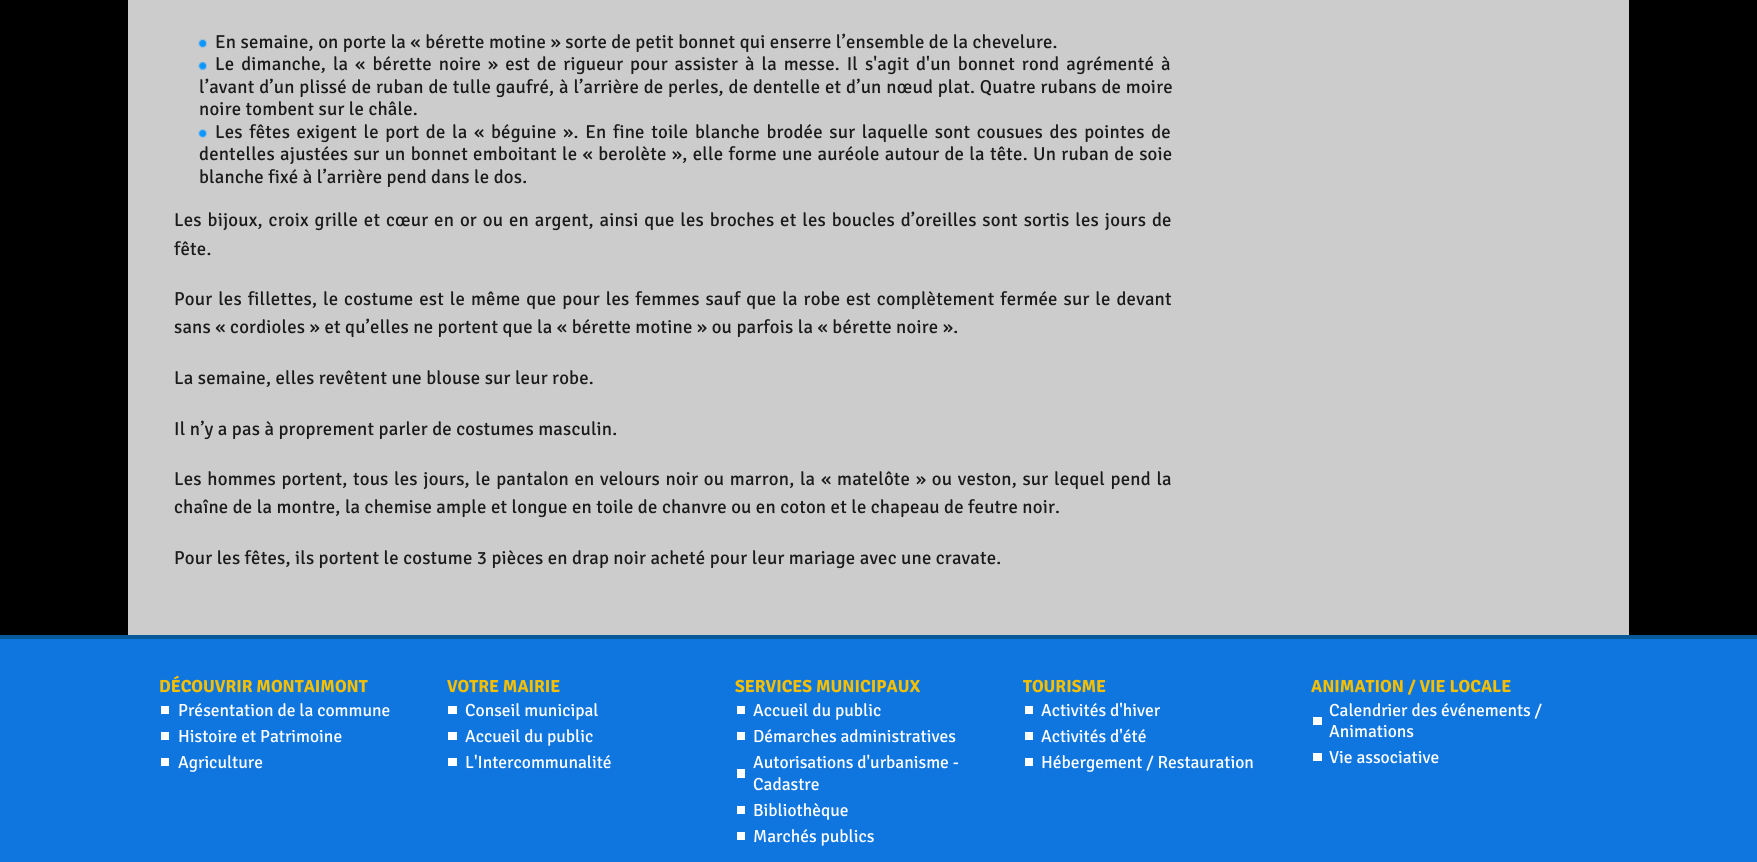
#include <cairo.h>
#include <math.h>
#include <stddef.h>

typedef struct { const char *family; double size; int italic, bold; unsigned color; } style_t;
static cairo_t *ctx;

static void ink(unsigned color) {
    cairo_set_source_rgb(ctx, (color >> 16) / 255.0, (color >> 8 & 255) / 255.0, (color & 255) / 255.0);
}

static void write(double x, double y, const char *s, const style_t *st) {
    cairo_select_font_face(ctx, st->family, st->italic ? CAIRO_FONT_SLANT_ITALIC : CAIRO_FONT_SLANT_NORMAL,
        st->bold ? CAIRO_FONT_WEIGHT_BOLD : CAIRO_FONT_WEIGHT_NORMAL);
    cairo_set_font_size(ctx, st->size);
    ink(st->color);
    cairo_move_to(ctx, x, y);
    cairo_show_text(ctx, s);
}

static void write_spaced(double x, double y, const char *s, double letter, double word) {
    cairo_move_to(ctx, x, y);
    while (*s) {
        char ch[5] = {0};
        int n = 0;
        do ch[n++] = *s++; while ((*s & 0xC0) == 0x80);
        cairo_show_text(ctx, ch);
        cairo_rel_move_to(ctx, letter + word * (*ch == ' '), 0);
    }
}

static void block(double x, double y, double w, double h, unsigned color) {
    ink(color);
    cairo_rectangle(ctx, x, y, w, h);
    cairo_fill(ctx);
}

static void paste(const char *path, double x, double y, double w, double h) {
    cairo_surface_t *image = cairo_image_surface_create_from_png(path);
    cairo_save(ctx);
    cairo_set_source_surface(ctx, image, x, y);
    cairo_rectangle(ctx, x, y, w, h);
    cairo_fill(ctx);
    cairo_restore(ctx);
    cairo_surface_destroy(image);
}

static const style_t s1 = {"Signika", 17.5, 0, 1, 0xf6bf00};
static const style_t s2 = {"Signika", 17.5, 0, 0, 0xffffff};

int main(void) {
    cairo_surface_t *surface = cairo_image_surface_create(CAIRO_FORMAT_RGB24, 1757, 862);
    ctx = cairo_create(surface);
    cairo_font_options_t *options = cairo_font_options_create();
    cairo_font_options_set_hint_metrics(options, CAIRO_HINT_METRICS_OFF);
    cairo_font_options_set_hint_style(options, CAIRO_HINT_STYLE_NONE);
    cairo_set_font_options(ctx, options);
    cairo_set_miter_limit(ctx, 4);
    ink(0x000000);
    cairo_paint(ctx);
    block(128, 0, 1501, 635, 0xcccccc);
    paste("pic1.png", 198, 39, 9, 9);
    cairo_select_font_face(ctx, "Signika", CAIRO_FONT_SLANT_NORMAL, CAIRO_FONT_WEIGHT_NORMAL);
    cairo_set_font_size(ctx, 18.75);
    ink(0x1b1b1b);
    write_spaced(215, 48, "En semaine, on porte la « bérette motine » sorte de petit bonnet qui enserre l’ensemble de la chevelure.", 0.19, 0);
    paste("pic2.png", 198, 62, 9, 8);
    write_spaced(215, 70, "Le dimanche, la « bérette noire » est de rigueur pour assister à la messe. Il s'agit d'un bonnet rond agrémenté à", 0.19, 2.5);
    write_spaced(199, 93, "l’avant d’un plissé de ruban de tulle gaufré, à l’arrière de perles, de dentelle et d’un nœud plat. Quatre rubans de moire", 0.19, 0.4);
    write_spaced(199, 115, "noire tombent sur le châle.", 0.19, 0);
    paste("pic1.png", 198, 129, 9, 9);
    write_spaced(215, 138, "Les fêtes exigent le port de la « béguine ». En fine toile blanche brodée sur laquelle sont cousues des pointes de", 0.19, 2.2);
    write_spaced(199, 160, "dentelles ajustées sur un bonnet emboitant le « berolète », elle forme une auréole autour de la tête. Un ruban de soie", 0.19, 0.9);
    write_spaced(199, 183, "blanche fixé à l’arrière pend dans le dos.", 0.19, 0);
    write_spaced(174, 226, "Les bijoux, croix grille et cœur en or ou en argent, ainsi que les broches et les boucles d’oreilles sont sortis les jours de", 0.19, 1.5);
    write_spaced(174, 255, "fête.", 0.19, 0);
    write_spaced(174, 305, "Pour les fillettes, le costume est le même que pour les femmes sauf que la robe est complètement fermée sur le devant", 0.19, 1.55);
    write_spaced(174, 333, "sans « cordioles » et qu’elles ne portent que la « bérette motine » ou parfois la « bérette noire ».", 0.19, 0);
    write_spaced(174, 384, "La semaine, elles revêtent une blouse sur leur robe.", 0.19, 0);
    write_spaced(174, 435, "Il n’y a pas à proprement parler de costumes masculin.", 0.19, 0);
    write_spaced(174, 485, "Les hommes portent, tous les jours, le pantalon en velours noir ou marron, la « matelôte » ou veston, sur lequel pend la", 0.19, 1.25);
    write_spaced(174, 513, "chaîne de la montre, la chemise ample et longue en toile de chanvre ou en coton et le chapeau de feutre noir.", 0.19, 0);
    write_spaced(174, 564, "Pour les fêtes, ils portent le costume 3 pièces en drap noir acheté pour leur mariage avec une cravate.", 0.19, 0);
    block(0, 639, 1757, 223, 0x1076df);
    block(0, 635, 1757, 4, 0x075997);
    write(159, 692, "DÉCOUVRIR MONTAIMONT", &s1);
    block(161, 706, 8, 8, 0xffffff);
    write(178, 716, "Présentation de la commune", &s2);
    block(161, 732, 8, 8, 0xffffff);
    write(178, 742, "Histoire et Patrimoine", &s2);
    block(161, 758, 8, 8, 0xffffff);
    write(178, 768, "Agriculture", &s2);
    write(447, 692, "VOTRE MAIRIE", &s1);
    block(448, 706, 9, 8, 0xffffff);
    write(465, 716, "Conseil municipal", &s2);
    block(448, 732, 9, 8, 0xffffff);
    write(465, 742, "Accueil du public", &s2);
    block(448, 758, 9, 8, 0xffffff);
    write(465, 768, "L'Intercommunalité", &s2);
    write(735, 692, "SERVICES MUNICIPAUX", &s1);
    block(737, 706, 8, 8, 0xffffff);
    write(753, 716, "Accueil du public", &s2);
    block(737, 732, 8, 8, 0xffffff);
    write(753, 742, "Démarches administratives", &s2);
    block(737, 769, 8, 9, 0xffffff);
    write(753, 768, "Autorisations d'urbanisme -", &s2);
    write(753, 790, "Cadastre", &s2);
    block(737, 806, 8, 8, 0xffffff);
    write(753, 816, "Bibliothèque", &s2);
    block(737, 832, 8, 8, 0xffffff);
    write(753, 842, "Marchés publics", &s2);
    write(1023, 692, "TOURISME", &s1);
    block(1025, 706, 8, 8, 0xffffff);
    write(1041, 716, "Activités d'hiver", &s2);
    block(1025, 732, 8, 8, 0xffffff);
    write(1041, 742, "Activités d'été", &s2);
    block(1025, 758, 8, 8, 0xffffff);
    write(1041, 768, "Hébergement / Restauration", &s2);
    write(1311, 692, "ANIMATION / VIE LOCALE", &s1);
    block(1313, 717, 9, 8, 0xffffff);
    write(1329, 716, "Calendrier des événements /", &s2);
    write(1329, 737, "Animations", &s2);
    block(1313, 753, 9, 8, 0xffffff);
    write(1329, 763, "Vie associative", &s2);
    cairo_surface_write_to_png(surface, "screenshot.png");
    cairo_font_options_destroy(options);
    cairo_destroy(ctx);
    cairo_surface_destroy(surface);
    return 0;
}
